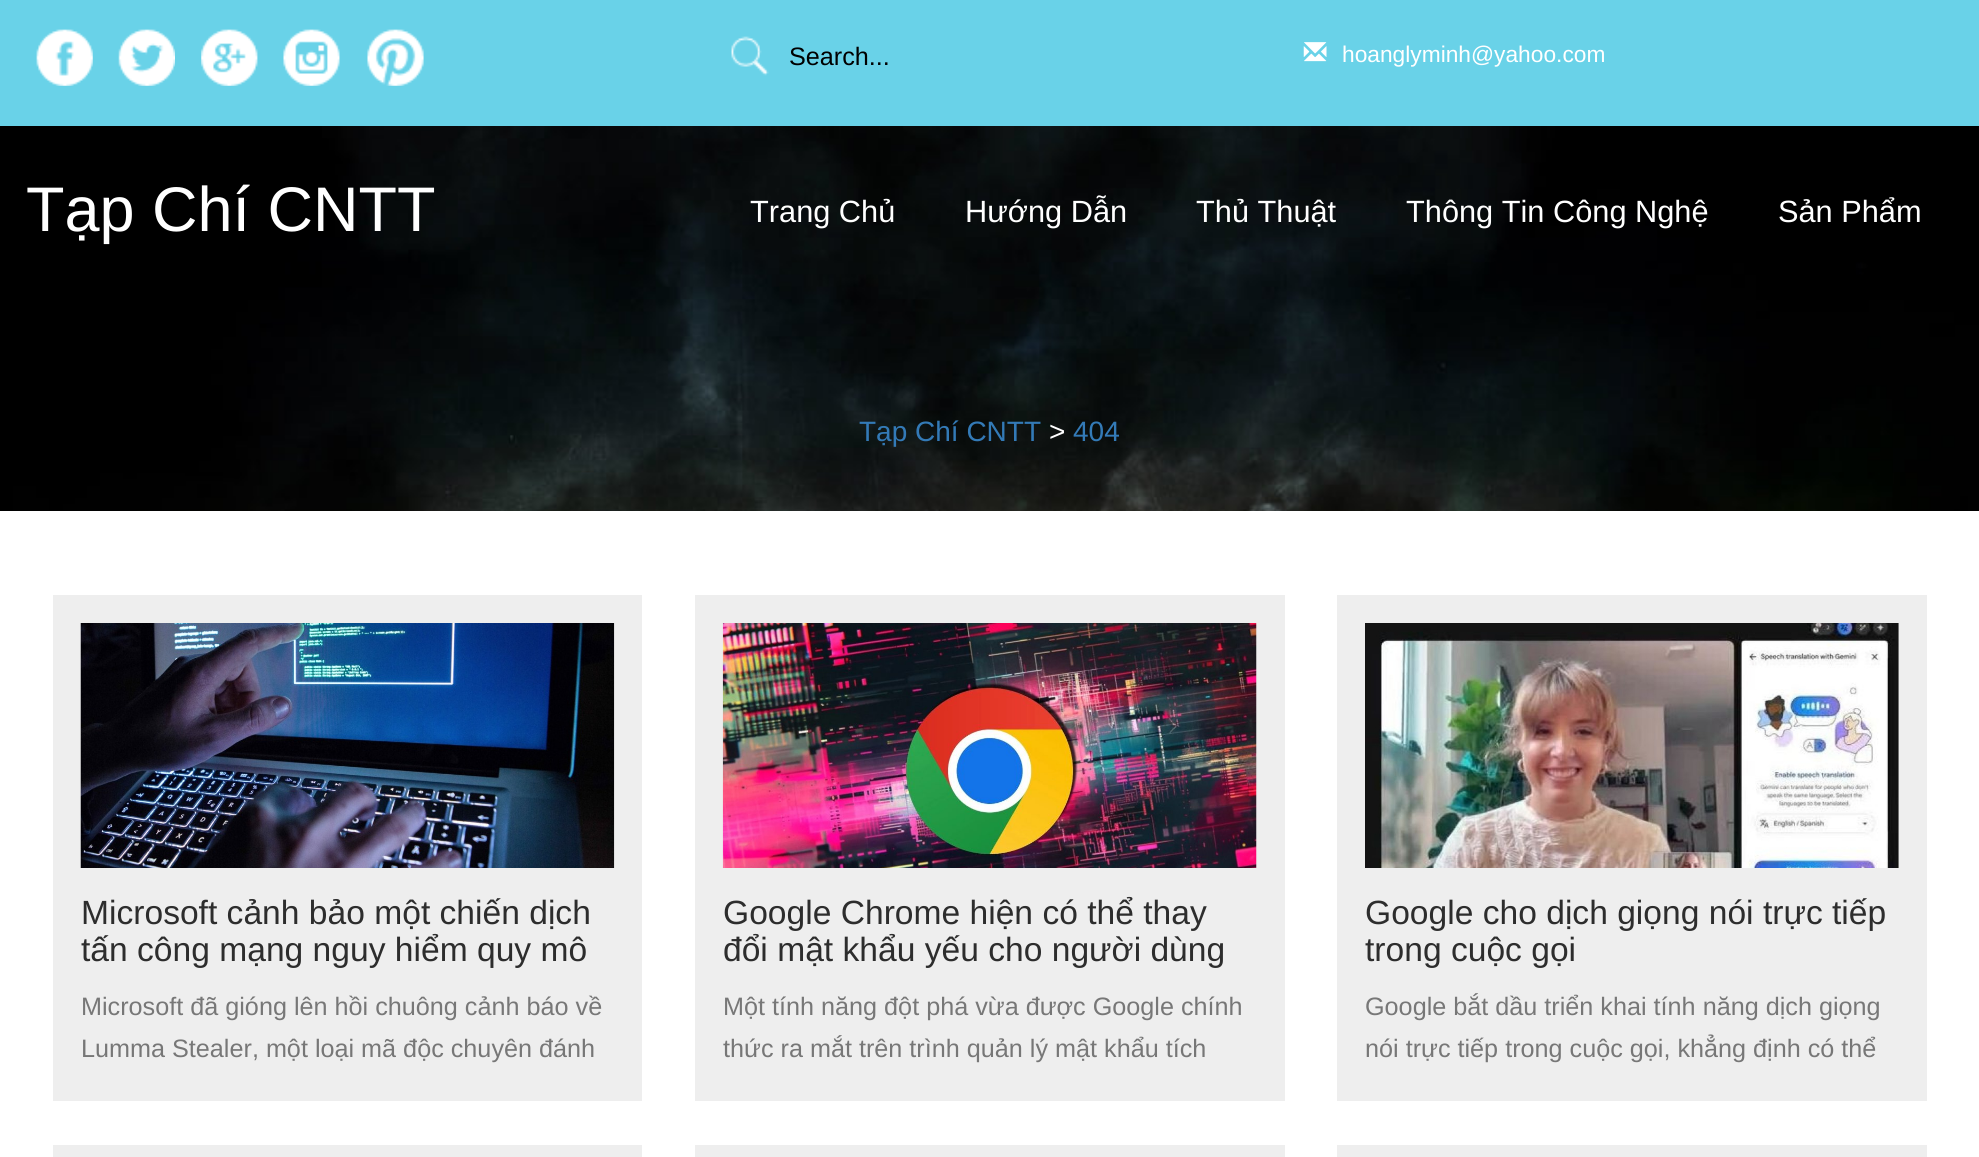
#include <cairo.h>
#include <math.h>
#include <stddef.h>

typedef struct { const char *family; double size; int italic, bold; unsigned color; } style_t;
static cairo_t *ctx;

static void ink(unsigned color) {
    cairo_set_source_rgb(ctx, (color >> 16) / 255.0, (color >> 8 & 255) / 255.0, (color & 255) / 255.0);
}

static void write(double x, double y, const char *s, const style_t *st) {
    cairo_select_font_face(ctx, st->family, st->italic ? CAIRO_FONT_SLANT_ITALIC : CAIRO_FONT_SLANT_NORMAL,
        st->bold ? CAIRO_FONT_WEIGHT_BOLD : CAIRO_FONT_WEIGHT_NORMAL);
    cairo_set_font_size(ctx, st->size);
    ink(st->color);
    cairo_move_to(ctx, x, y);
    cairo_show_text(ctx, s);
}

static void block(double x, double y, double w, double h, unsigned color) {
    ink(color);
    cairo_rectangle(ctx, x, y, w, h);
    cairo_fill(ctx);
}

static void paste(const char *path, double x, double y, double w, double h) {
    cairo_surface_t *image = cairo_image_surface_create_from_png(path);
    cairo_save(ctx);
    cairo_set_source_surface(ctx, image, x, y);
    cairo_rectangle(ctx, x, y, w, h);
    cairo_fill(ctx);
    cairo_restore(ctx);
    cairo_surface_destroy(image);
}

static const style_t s1 = {"Liberation Sans", 25.2, 0, 0, 0x000000};
static const style_t s2 = {"Liberation Sans", 22.75, 0, 0, 0xffffff};
static const style_t s3 = {"Liberation Sans", 63, 0, 0, 0xffffff};
static const style_t s4 = {"Liberation Sans", 30.75, 0, 0, 0xffffff};
static const style_t s5 = {"Liberation Sans", 28, 0, 0, 0x337ab7};
static const style_t s6 = {"Liberation Sans", 28, 0, 0, 0xffffff};
static const style_t s7 = {"Liberation Sans", 33.6, 0, 0, 0x2d2d2d};
static const style_t s8 = {"Liberation Sans", 25.2, 0, 0, 0x777777};

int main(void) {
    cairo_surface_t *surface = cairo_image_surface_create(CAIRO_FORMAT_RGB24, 1979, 1157);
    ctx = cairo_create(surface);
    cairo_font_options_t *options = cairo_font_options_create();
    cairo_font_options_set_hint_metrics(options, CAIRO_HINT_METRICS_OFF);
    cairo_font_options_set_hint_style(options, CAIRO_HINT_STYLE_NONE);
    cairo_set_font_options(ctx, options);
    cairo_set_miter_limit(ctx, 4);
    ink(0xffffff);
    cairo_paint(ctx);
    block(0, 0, 1979, 126, 0x69d2e8);
    paste("pic1.png", 36, 29, 57, 57);
    paste("pic2.png", 118, 29, 57, 57);
    paste("pic3.png", 201, 29, 57, 57);
    paste("pic4.png", 283, 29, 57, 57);
    paste("pic5.png", 367, 29, 57, 57);
    paste("pic6.png", 731, 36, 38, 40);
    write(789, 65, "Search...", &s1);
    paste("pic7.png", 1303, 42, 24, 20);
    write(1342, 62, "hoanglyminh@yahoo.com", &s2);
    paste("pic8.png", 0, 126, 1979, 385);
    write(26, 231, "Tạp Chí CNTT", &s3);
    write(750, 222, "Trang Chủ", &s4);
    write(965, 222, "Hướng Dẫn", &s4);
    write(1196, 222, "Thủ Thuật", &s4);
    write(1406, 222, "Thông Tin Công Nghệ", &s4);
    write(1778, 222, "Sản Phẩm", &s4);
    write(859, 441, "Tạp Chí CNTT", &s5);
    write(1049, 441, ">", &s6);
    write(1073, 441, "404", &s5);
    block(53, 595, 589, 506, 0xeeeeee);
    paste("pic9.png", 80, 623, 535, 245);
    write(81, 924, "Microsoft cảnh bảo một chiến dịch", &s7);
    write(81, 961, "tấn công mạng nguy hiểm quy mô", &s7);
    write(81, 1015, "Microsoft đã gióng lên hồi chuông cảnh báo về", &s8);
    write(81, 1057, "Lumma Stealer, một loại mã độc chuyên đánh", &s8);
    block(695, 595, 590, 506, 0xeeeeee);
    paste("pic10.png", 722, 623, 535, 245);
    write(723, 924, "Google Chrome hiện có thể thay", &s7);
    write(723, 961, "đổi mật khẩu yếu cho người dùng", &s7);
    write(723, 1015, "Một tính năng đột phá vừa được Google chính", &s8);
    write(723, 1057, "thức ra mắt trên trình quản lý mật khẩu tích", &s8);
    block(1337, 595, 590, 506, 0xeeeeee);
    paste("pic11.png", 1365, 623, 534, 245);
    write(1365, 924, "Google cho dịch giọng nói trực tiếp", &s7);
    write(1365, 961, "trong cuộc gọi", &s7);
    write(1365, 1015, "Google bắt dầu triển khai tính năng dịch giọng", &s8);
    write(1365, 1057, "nói trực tiếp trong cuộc gọi, khẳng định có thể", &s8);
    block(53, 1145, 589, 12, 0xeeeeee);
    block(695, 1145, 590, 12, 0xeeeeee);
    block(1337, 1145, 590, 12, 0xeeeeee);
    cairo_surface_write_to_png(surface, "screenshot.png");
    cairo_font_options_destroy(options);
    cairo_destroy(ctx);
    cairo_surface_destroy(surface);
    return 0;
}
